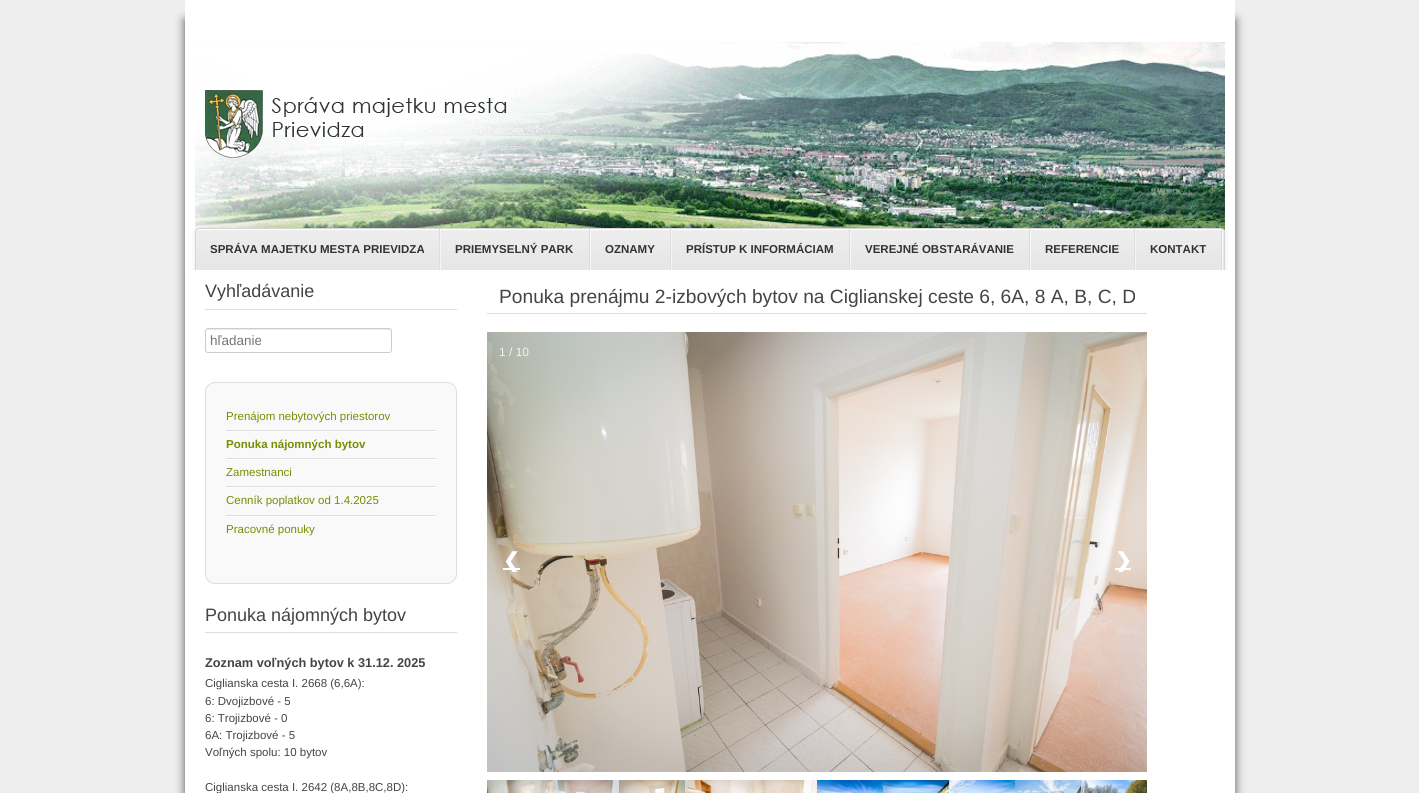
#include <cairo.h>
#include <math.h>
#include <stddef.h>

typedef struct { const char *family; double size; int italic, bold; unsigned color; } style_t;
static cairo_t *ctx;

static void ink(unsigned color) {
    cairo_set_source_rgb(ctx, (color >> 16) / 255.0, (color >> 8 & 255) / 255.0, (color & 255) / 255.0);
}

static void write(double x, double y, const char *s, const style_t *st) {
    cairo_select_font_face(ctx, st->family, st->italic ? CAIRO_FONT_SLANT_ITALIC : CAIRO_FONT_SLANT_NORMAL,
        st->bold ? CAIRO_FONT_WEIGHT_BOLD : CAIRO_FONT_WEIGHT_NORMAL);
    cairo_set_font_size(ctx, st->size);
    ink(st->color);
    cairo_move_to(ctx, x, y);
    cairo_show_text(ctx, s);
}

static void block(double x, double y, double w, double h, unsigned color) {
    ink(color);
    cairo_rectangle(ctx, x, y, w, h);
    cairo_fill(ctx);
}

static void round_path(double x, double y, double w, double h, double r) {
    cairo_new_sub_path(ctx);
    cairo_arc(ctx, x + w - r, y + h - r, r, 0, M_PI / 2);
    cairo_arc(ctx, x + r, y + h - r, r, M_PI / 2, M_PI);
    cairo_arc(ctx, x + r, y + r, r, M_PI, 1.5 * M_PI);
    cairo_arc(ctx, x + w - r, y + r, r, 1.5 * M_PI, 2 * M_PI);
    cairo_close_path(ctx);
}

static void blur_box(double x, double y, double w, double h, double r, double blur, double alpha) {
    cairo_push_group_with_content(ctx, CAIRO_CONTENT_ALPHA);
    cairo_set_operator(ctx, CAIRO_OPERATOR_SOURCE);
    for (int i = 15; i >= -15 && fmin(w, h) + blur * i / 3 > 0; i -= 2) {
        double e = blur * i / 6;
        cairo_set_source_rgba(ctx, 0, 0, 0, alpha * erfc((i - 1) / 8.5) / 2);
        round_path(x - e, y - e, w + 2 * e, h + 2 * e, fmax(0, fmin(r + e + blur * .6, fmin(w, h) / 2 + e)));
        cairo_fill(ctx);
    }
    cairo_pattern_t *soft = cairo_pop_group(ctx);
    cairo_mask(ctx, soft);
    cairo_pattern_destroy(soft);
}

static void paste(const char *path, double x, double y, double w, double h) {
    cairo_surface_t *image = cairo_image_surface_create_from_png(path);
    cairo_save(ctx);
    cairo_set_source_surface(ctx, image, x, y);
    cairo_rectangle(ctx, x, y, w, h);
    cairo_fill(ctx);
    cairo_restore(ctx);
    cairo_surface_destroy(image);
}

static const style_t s1 = {"Liberation Sans", 11.5, 0, 1, 0x333333};
static const style_t s2 = {"Liberation Sans", 18, 0, 0, 0x444444};
static const style_t s3 = {"Liberation Sans", 13.5, 0, 0, 0x757575};
static const style_t s4 = {"Liberation Sans", 11.5, 0, 0, 0x768f00};
static const style_t s5 = {"Liberation Sans", 11.5, 0, 1, 0x768f00};
static const style_t s6 = {"Liberation Sans", 12.75, 0, 1, 0x444444};
static const style_t s7 = {"Liberation Sans", 11.5, 0, 0, 0x444444};
static const style_t s8 = {"Liberation Sans", 19.2, 0, 0, 0x444444};
static const style_t s9 = {"Liberation Sans", 12, 0, 0, 0xf2f2f2};
static const style_t s10 = {"DejaVu Sans", 20, 0, 1, 0xffffff};

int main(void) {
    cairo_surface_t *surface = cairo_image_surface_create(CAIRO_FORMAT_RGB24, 1419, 793);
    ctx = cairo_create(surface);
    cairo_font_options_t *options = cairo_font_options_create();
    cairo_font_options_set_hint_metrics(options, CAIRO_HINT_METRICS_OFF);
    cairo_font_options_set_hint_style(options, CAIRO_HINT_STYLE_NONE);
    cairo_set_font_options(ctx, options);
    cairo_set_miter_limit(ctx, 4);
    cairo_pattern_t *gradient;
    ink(0xeeeeee);
    cairo_paint(ctx);
    ink(0x555555);
    blur_box(185, 20, 1050, 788, 0, 5, 1);
    block(185, 0, 1050, 793, 0xffffff);
    paste("pic1.png", 195, 42, 1030, 188);
    paste("pic2.png", 205, 90, 302, 68);
    cairo_save(ctx);
    cairo_rectangle(ctx, 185, 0, 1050, 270);
    cairo_clip(ctx);
    ink(0x000000);
    blur_box(195, 229, 1030, 84, 4, 2.5, 0.1);
    cairo_restore(ctx);
    cairo_save(ctx);
    cairo_new_path(ctx);
    cairo_move_to(ctx, 199, 228);
    cairo_line_to(ctx, 1221, 228);
    cairo_curve_to(ctx, 1223, 228, 1225, 230, 1225, 232);
    cairo_line_to(ctx, 1225, 312);
    cairo_line_to(ctx, 195, 312);
    cairo_line_to(ctx, 195, 232);
    cairo_curve_to(ctx, 195, 230, 197, 228, 199, 228);
    cairo_close_path(ctx);
    cairo_clip(ctx);
    gradient = cairo_pattern_create_linear(710, 229, 710, 311);
    cairo_pattern_add_color_stop_rgba(gradient, 0, 0.933, 0.933, 0.933, 1);
    cairo_pattern_add_color_stop_rgba(gradient, 1, 0.867, 0.867, 0.867, 1);
    cairo_set_source(ctx, gradient);
    cairo_pattern_destroy(gradient);
    cairo_rectangle(ctx, 195, 229, 1030, 41);
    cairo_fill(ctx);
    cairo_restore(ctx);
    cairo_new_path(ctx);
    cairo_move_to(ctx, 199, 230);
    cairo_line_to(ctx, 1221, 230);
    cairo_curve_to(ctx, 1223, 230, 1224, 231, 1224, 233);
    cairo_curve_to(ctx, 1224, 231, 1223, 229, 1221, 229);
    cairo_line_to(ctx, 199, 229);
    cairo_curve_to(ctx, 197, 229, 196, 231, 196, 233);
    cairo_curve_to(ctx, 196, 231, 197, 230, 199, 230);
    cairo_close_path(ctx);
    cairo_fill(ctx);
    cairo_save(ctx);
    cairo_rectangle(ctx, 185, 0, 1050, 270);
    cairo_clip(ctx);
    cairo_new_path(ctx);
    cairo_move_to(ctx, 199, 228.5);
    cairo_line_to(ctx, 1221, 228.5);
    cairo_curve_to(ctx, 1223, 228.5, 1224.5, 230, 1224.5, 232);
    cairo_line_to(ctx, 1224.5, 311.5);
    cairo_line_to(ctx, 195.5, 311.5);
    cairo_line_to(ctx, 195.5, 232);
    cairo_curve_to(ctx, 195.5, 230, 197, 228.5, 199, 228.5);
    cairo_close_path(ctx);
    ink(0xd5d5d5);
    cairo_set_line_width(ctx, 1);
    cairo_stroke(ctx);
    cairo_restore(ctx);
    block(440, 229, 1, 41, 0xf5f5f5);
    block(439, 229, 1, 41, 0xdddddd);
    write(210, 253, "SPRÁVA MAJETKU MESTA PRIEVIDZA", &s1);
    block(590, 229, 1, 41, 0xf5f5f5);
    block(589, 229, 1, 41, 0xdddddd);
    write(455, 253, "PRIEMYSELNÝ PARK", &s1);
    block(671, 229, 1, 41, 0xf5f5f5);
    block(670, 229, 1, 41, 0xdddddd);
    write(605, 253, "OZNAMY", &s1);
    block(850, 229, 1, 41, 0xf5f5f5);
    block(849, 229, 1, 41, 0xdddddd);
    write(686, 253, "PRÍSTUP K INFORMÁCIAM", &s1);
    block(1030, 229, 1, 41, 0xf5f5f5);
    block(1029, 229, 1, 41, 0xdddddd);
    write(865, 253, "VEREJNÉ OBSTARÁVANIE", &s1);
    block(1135, 229, 1, 41, 0xf5f5f5);
    block(1134, 229, 1, 41, 0xdddddd);
    write(1045, 253, "REFERENCIE", &s1);
    block(1222, 229, 1, 41, 0xf5f5f5);
    block(1221, 229, 1, 41, 0xdddddd);
    write(1150, 253, "KONTAKT", &s1);
    block(205, 309, 252, 1, 0xdddddd);
    write(205, 297, "Vyhľadávanie", &s2);
    ink(0xececec);
    cairo_new_path(ctx);
    cairo_move_to(ctx, 208, 330);
    cairo_line_to(ctx, 389, 330);
    cairo_curve_to(ctx, 390, 330, 391, 331, 391, 332);
    cairo_line_to(ctx, 391, 331);
    cairo_curve_to(ctx, 391, 330, 390, 329, 389, 329);
    cairo_line_to(ctx, 208, 329);
    cairo_curve_to(ctx, 207, 329, 206, 330, 206, 331);
    cairo_line_to(ctx, 206, 332);
    cairo_curve_to(ctx, 206, 331, 207, 330, 208, 330);
    cairo_close_path(ctx);
    cairo_fill(ctx);
    round_path(205.5, 328.5, 186, 24, 2.5);
    ink(0xcccccc);
    cairo_set_line_width(ctx, 1);
    cairo_stroke(ctx);
    write(210, 345, "hľadanie", &s3);
    ink(0xf9f9f9);
    round_path(205.5, 382.5, 251, 201, 9.5);
    cairo_fill_preserve(ctx);
    ink(0xdddddd);
    cairo_stroke(ctx);
    block(226, 431, 210, 1, 0xffffff);
    block(226, 430, 210, 1, 0xdddddd);
    write(226, 420, "Prenájom nebytových priestorov", &s4);
    block(226, 459, 210, 1, 0xffffff);
    block(226, 458, 210, 1, 0xdddddd);
    write(226, 448, "Ponuka nájomných bytov", &s5);
    block(226, 487, 210, 1, 0xffffff);
    block(226, 486, 210, 1, 0xdddddd);
    write(226, 476, "Zamestnanci", &s4);
    block(226, 516, 210, 1, 0xffffff);
    block(226, 515, 210, 1, 0xdddddd);
    write(226, 504, "Cenník poplatkov od 1.4.2025", &s4);
    write(226, 533, "Pracovné ponuky", &s4);
    block(205, 632, 252, 1, 0xdddddd);
    write(205, 621, "Ponuka nájomných bytov", &s2);
    write(205, 667, "Zoznam voľných bytov k 31.12. 2025", &s6);
    write(205, 687, "Ciglianska cesta I. 2668 (6,6A):", &s7);
    write(205, 705, "6: Dvojizbové - 5", &s7);
    write(205, 722, "6: Trojizbové - 0", &s7);
    write(205, 739, "6A: Trojizbové - 5", &s7);
    write(205, 756, "Voľných spolu: 10 bytov", &s7);
    write(205, 791, "Ciglianska cesta I. 2642 (8A,8B,8C,8D):", &s7);
    block(487, 313, 660, 1, 0xdddddd);
    write(499, 303, "Ponuka prenájmu 2-izbových bytov na Ciglianskej ceste 6, 6A, 8 A, B, C, D", &s8);
    paste("pic3.png", 487, 332, 660, 440);
    write(499, 356, "1 / 10", &s9);
    block(503, 568, 17, 2, 0xffffff);
    write(503, 567, "❮", &s10);
    block(1115, 568, 16, 2, 0xffffff);
    write(1115, 567, "❯", &s10);
    paste("pic4.png", 487, 780, 66, 13);
    paste("pic5.png", 553, 780, 66, 13);
    paste("pic6.png", 619, 780, 66, 13);
    paste("pic7.png", 685, 780, 66, 13);
    paste("pic8.png", 751, 780, 66, 13);
    paste("pic9.png", 817, 780, 66, 13);
    paste("pic10.png", 883, 780, 66, 13);
    paste("pic11.png", 949, 780, 66, 13);
    paste("pic12.png", 1015, 780, 66, 13);
    paste("pic13.png", 1081, 780, 66, 13);
    cairo_surface_write_to_png(surface, "screenshot.png");
    cairo_font_options_destroy(options);
    cairo_destroy(ctx);
    cairo_surface_destroy(surface);
    return 0;
}
